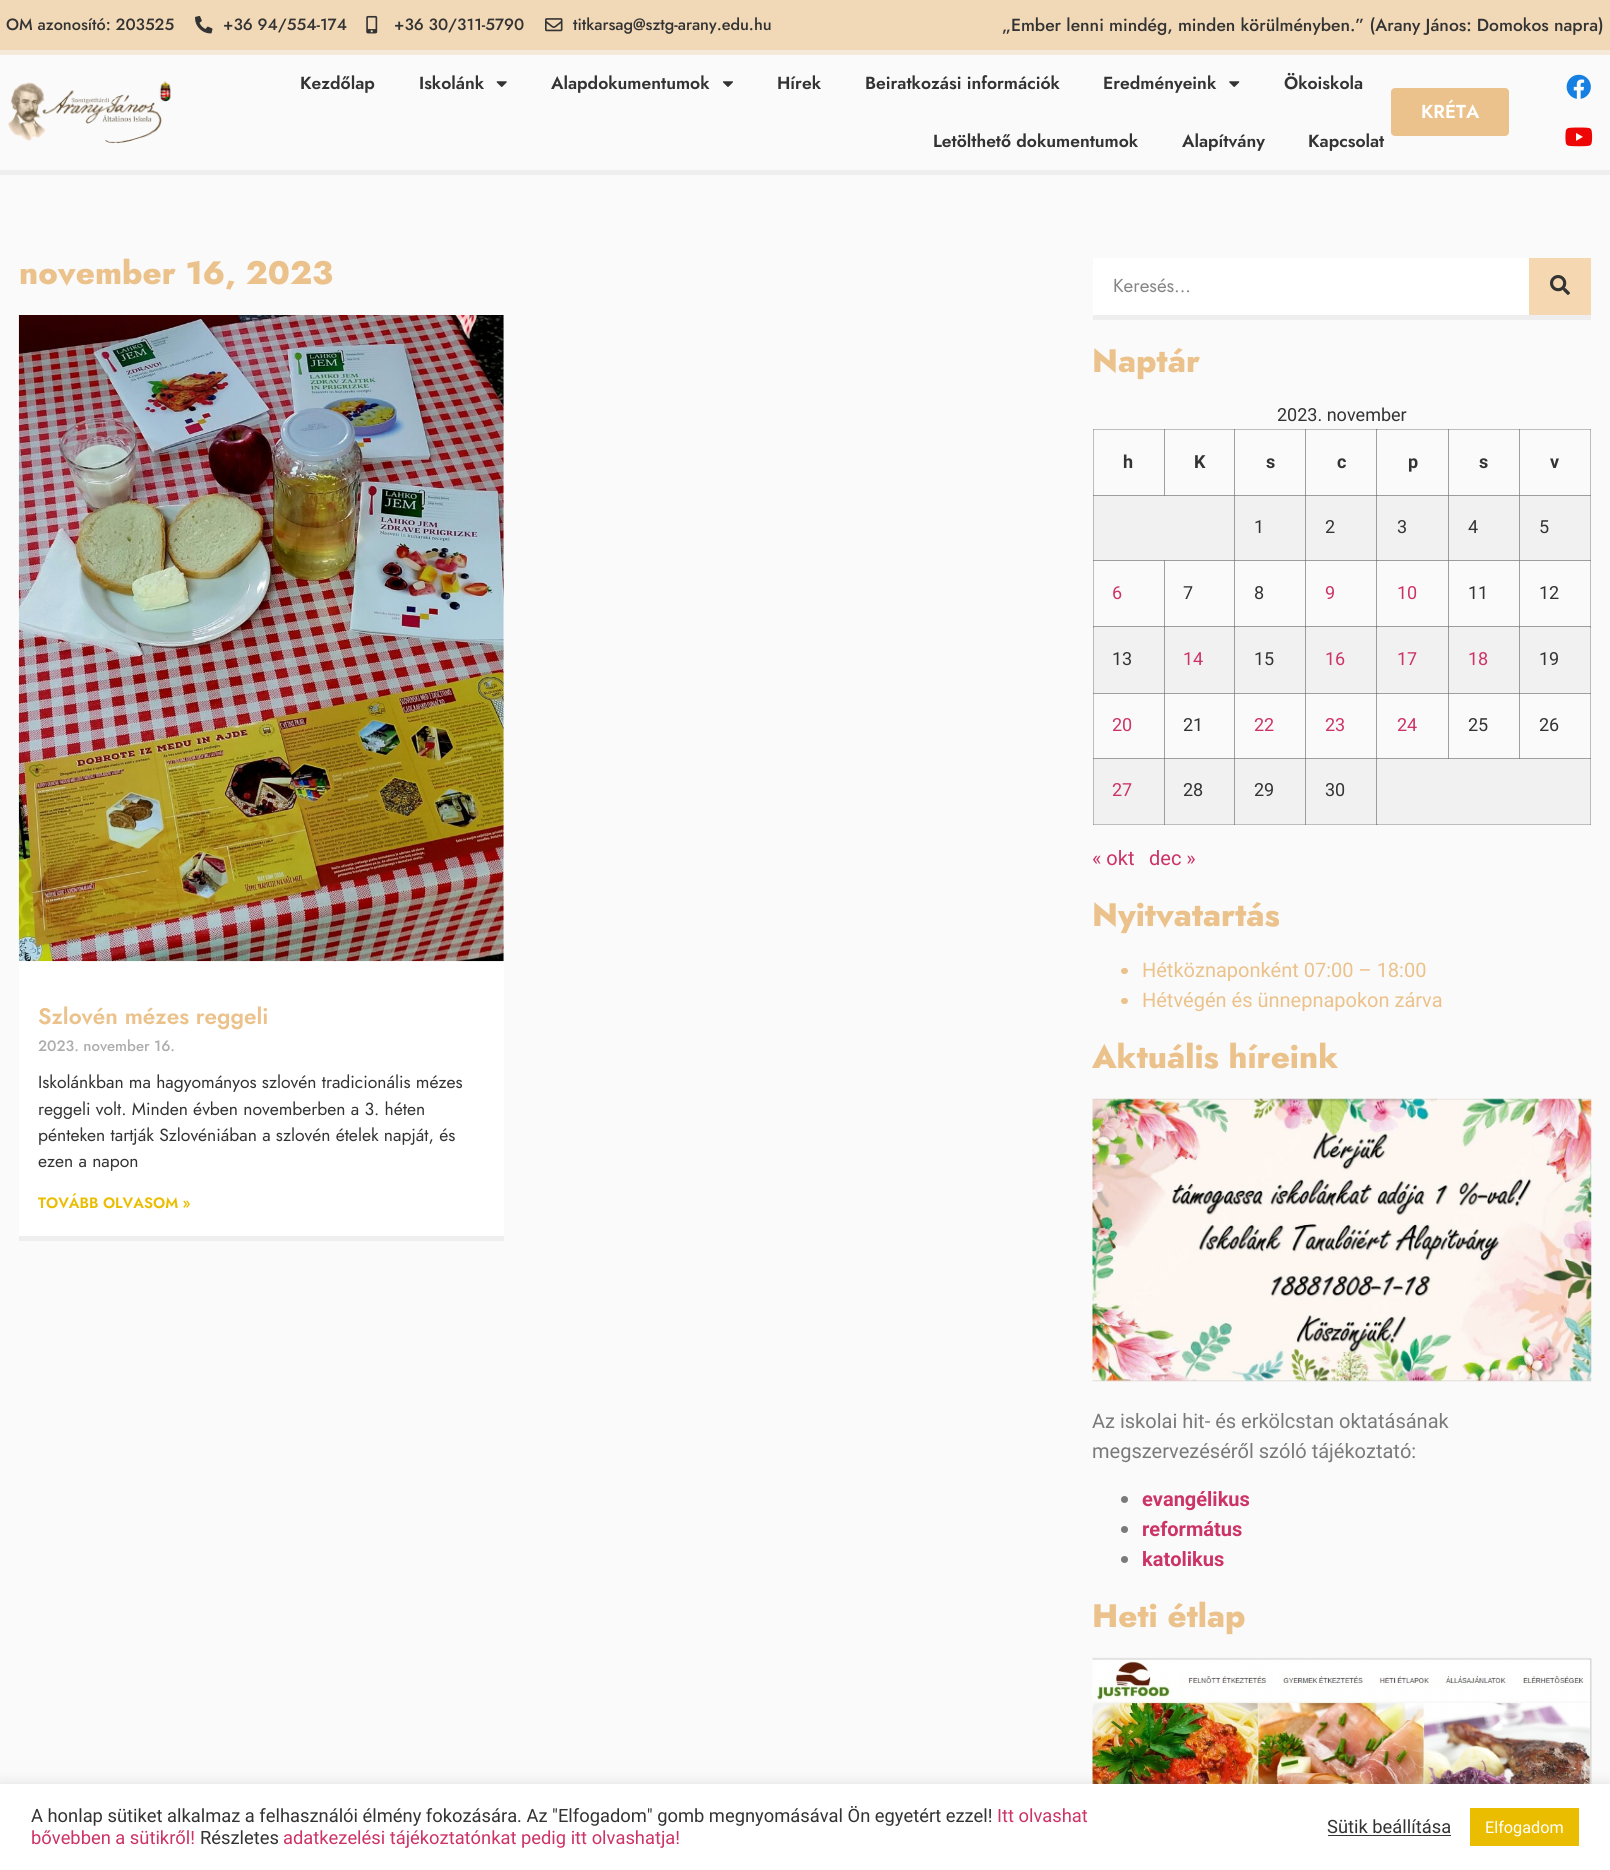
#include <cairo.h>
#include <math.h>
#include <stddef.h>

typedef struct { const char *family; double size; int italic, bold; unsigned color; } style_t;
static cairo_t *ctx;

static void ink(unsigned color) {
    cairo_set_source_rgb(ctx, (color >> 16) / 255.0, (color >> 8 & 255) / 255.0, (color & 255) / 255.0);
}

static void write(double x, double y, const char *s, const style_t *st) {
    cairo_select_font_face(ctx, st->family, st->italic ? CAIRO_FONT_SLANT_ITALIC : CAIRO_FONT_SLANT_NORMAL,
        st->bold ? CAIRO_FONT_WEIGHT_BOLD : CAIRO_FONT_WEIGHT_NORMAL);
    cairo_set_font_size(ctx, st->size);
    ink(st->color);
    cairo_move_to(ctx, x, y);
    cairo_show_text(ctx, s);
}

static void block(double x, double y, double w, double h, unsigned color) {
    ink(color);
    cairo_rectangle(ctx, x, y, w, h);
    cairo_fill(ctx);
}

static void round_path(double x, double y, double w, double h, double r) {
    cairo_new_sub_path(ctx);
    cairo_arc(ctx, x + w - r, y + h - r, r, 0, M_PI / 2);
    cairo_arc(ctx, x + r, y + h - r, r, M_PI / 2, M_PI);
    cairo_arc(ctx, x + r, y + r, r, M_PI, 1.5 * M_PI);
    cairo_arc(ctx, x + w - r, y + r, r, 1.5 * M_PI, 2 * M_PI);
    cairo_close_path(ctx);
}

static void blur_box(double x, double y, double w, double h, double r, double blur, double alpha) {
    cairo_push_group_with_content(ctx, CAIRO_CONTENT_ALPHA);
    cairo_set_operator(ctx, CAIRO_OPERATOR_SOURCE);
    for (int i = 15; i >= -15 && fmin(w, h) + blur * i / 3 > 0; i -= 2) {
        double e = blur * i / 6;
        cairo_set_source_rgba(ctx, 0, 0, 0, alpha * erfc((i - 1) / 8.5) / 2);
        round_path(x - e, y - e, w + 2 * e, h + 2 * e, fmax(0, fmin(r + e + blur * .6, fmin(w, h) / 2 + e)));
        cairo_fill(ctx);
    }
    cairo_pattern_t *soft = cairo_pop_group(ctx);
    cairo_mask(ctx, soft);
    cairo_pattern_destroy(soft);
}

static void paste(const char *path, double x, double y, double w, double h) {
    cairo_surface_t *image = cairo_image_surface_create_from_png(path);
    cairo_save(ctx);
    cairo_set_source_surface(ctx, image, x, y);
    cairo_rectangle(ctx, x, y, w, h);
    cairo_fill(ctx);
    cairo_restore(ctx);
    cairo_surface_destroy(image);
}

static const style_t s1 = {"Jost Medium", 16.25, 0, 0, 0x333333};
static const style_t s2 = {"Jost Medium", 17.5, 0, 0, 0x333333};
static const style_t s3 = {"Jost SemiBold", 17.5, 0, 0, 0x333333};
static const style_t s4 = {"Jost SemiBold", 18.75, 0, 0, 0xffffff};
static const style_t s5 = {"Jost ExtraBold", 32.5, 0, 0, 0xebc28b};
static const style_t s6 = {"Jost SemiBold", 22.5, 0, 0, 0xebc28b};
static const style_t s7 = {"Jost Medium", 15, 0, 0, 0xadadad};
static const style_t s8 = {"Jost", 17.5, 0, 0, 0x333333};
static const style_t s9 = {"Jost SemiBold", 15, 0, 0, 0xebbd00};
static const style_t s10 = {"Jost", 18.75, 0, 0, 0x858585};
static const style_t s11 = {"Roboto", 18, 0, 0, 0x333333};
static const style_t s12 = {"Roboto", 18, 0, 1, 0x333333};
static const style_t s13 = {"Roboto", 18, 0, 0, 0xcc3366};
static const style_t s14 = {"Roboto", 20, 0, 0, 0xcc3366};
static const style_t s15 = {"Roboto", 20, 0, 0, 0xebc28b};
static const style_t s16 = {"Roboto", 20, 0, 0, 0x7a7a7a};
static const style_t s17 = {"Roboto", 20, 0, 1, 0xcc3366};
static const style_t s18 = {"Roboto", 18.33, 0, 0, 0x333333};
static const style_t s19 = {"Roboto", 18.33, 0, 0, 0xcc3366};
static const style_t s20 = {"Roboto", 16.25, 0, 0, 0xffffff};

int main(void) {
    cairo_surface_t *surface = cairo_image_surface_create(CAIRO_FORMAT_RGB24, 1610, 1870);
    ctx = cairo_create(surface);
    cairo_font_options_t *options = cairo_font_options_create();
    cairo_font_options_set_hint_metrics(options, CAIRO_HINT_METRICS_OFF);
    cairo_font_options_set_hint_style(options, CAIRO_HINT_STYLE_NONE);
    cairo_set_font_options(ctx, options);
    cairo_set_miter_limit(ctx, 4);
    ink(0xfafafa);
    cairo_paint(ctx);
    block(1093, 429, 1, 67, 0xbdbdbd);
    block(1093, 429, 72, 1, 0xbdbdbd);
    block(1093, 429, 1, 1, 0x9f9f9f);
    block(1164, 429, 1, 67, 0x9f9f9f);
    block(1164, 429, 71, 1, 0xbdbdbd);
    block(1164, 429, 1, 1, 0x888888);
    block(1234, 429, 1, 67, 0x9f9f9f);
    block(1234, 429, 72, 1, 0xbdbdbd);
    block(1234, 429, 1, 1, 0x888888);
    block(1305, 429, 1, 67, 0x9f9f9f);
    block(1305, 429, 73, 1, 0xbdbdbd);
    block(1305, 429, 1, 1, 0x888888);
    block(1376, 429, 1, 67, 0x9f9f9f);
    block(1376, 429, 73, 1, 0xbdbdbd);
    block(1376, 429, 2, 1, 0x9f9f9f);
    block(1376, 429, 1, 1, 0x888888);
    block(1448, 429, 1, 67, 0x9f9f9f);
    block(1448, 429, 72, 1, 0xbdbdbd);
    block(1448, 429, 1, 1, 0x888888);
    block(1519, 429, 1, 67, 0x9f9f9f);
    block(1590, 429, 1, 330, 0xbdbdbd);
    block(1590, 495, 1, 1, 0x888888);
    block(1093, 560, 1, 68, 0xbdbdbd);
    block(1164, 560, 1, 68, 0x9f9f9f);
    block(1234, 560, 1, 68, 0x9f9f9f);
    block(1305, 560, 1, 68, 0x9f9f9f);
    block(1376, 560, 1, 68, 0x9f9f9f);
    block(1448, 560, 1, 68, 0x9f9f9f);
    block(1519, 560, 1, 68, 0x9f9f9f);
    block(1590, 560, 1, 1, 0x888888);
    block(1590, 626, 1, 2, 0x9f9f9f);
    block(1590, 626, 1, 1, 0x888888);
    block(1093, 693, 1, 66, 0xbdbdbd);
    block(1093, 693, 72, 1, 0x9f9f9f);
    block(1093, 693, 1, 1, 0x888888);
    block(1164, 693, 1, 66, 0x9f9f9f);
    block(1164, 693, 71, 1, 0x9f9f9f);
    block(1164, 693, 1, 1, 0x818181);
    block(1234, 693, 1, 66, 0x9f9f9f);
    block(1234, 693, 72, 1, 0x9f9f9f);
    block(1234, 693, 1, 1, 0x818181);
    block(1305, 693, 1, 66, 0x9f9f9f);
    block(1305, 693, 73, 1, 0x9f9f9f);
    block(1305, 693, 1, 1, 0x818181);
    block(1376, 693, 1, 66, 0x9f9f9f);
    block(1376, 693, 73, 1, 0x9f9f9f);
    block(1376, 693, 2, 1, 0x888888);
    block(1376, 693, 1, 1, 0x818181);
    block(1448, 693, 1, 66, 0x9f9f9f);
    block(1448, 693, 72, 1, 0x9f9f9f);
    block(1448, 693, 1, 1, 0x818181);
    block(1519, 693, 1, 66, 0x9f9f9f);
    block(1093, 824, 498, 1, 0xbdbdbd);
    block(1093, 824, 1, 1, 0x9f9f9f);
    block(1093, 758, 427, 1, 0x9f9f9f);
    block(1093, 758, 1, 1, 0x888888);
    block(1164, 824, 1, 1, 0x888888);
    block(1164, 758, 1, 1, 0x818181);
    block(1234, 824, 1, 1, 0x888888);
    block(1234, 758, 1, 1, 0x818181);
    block(1305, 824, 1, 1, 0x888888);
    block(1305, 758, 1, 1, 0x818181);
    block(1376, 824, 2, 1, 0x9f9f9f);
    block(1376, 824, 1, 1, 0x888888);
    block(1590, 758, 1, 67, 0xbdbdbd);
    block(1590, 824, 1, 1, 0x9f9f9f);
    block(0, 0, 1610, 50, 0xf1d8b6);
    block(0, 50, 1610, 5, 0xf5e9d9);
    write(6, 30, "OM azonosító: 203525", &s1);
    paste("pic1.png", 195, 16, 18, 18);
    write(223, 30, "+36 94/554-174", &s1);
    paste("pic2.png", 366, 15, 12, 19);
    write(394, 30, "+36 30/311-5790", &s1);
    paste("pic3.png", 545, 18, 18, 14);
    write(573, 30, "titkarsag@sztg-arany.edu.hu", &s1);
    write(1002, 31, "„Ember lenni mindég, minden körülményben.” (Arany János: Domokos napra)", &s2);
    block(0, 170, 1610, 5, 0xeeeeee);
    paste("pic4.png", 8, 81, 163, 63);
    write(300, 89, "Kezdőlap", &s3);
    write(419, 89, "Iskolánk", &s3);
    paste("pic5.png", 496, 81, 11, 6);
    write(551, 89, "Alapdokumentumok", &s3);
    paste("pic6.png", 722, 81, 11, 6);
    write(777, 89, "Hírek", &s3);
    write(865, 89, "Beiratkozási információk", &s3);
    write(1103, 89, "Eredményeink", &s3);
    paste("pic7.png", 1229, 81, 11, 6);
    write(1284, 89, "Ökoiskola", &s3);
    write(933, 147, "Letölthető dokumentumok", &s3);
    write(1182, 147, "Alapítvány", &s3);
    write(1308, 147, "Kapcsolat", &s3);
    ink(0xebc28b);
    round_path(1391, 88, 118, 48, 4);
    cairo_fill(ctx);
    write(1421, 118, "KRÉTA", &s4);
    paste("pic8.png", 1566, 74, 25, 25);
    paste("pic9.png", 1565, 127, 28, 20);
    write(19, 284, "november 16, 2023", &s5);
    block(19, 315, 485, 921, 0xffffff);
    block(19, 1236, 485, 5, 0xeeeeee);
    paste("pic10.png", 18, 315, 486, 647);
    write(38, 1024, "Szlovén mézes reggeli", &s6);
    write(38, 1051, "2023. november 16.", &s7);
    write(38, 1088, "Iskolánkban ma hagyományos szlovén tradicionális mézes", &s8);
    write(38, 1115, "reggeli volt. Minden évben novemberben a 3. héten", &s8);
    write(38, 1141, "pénteken tartják Szlovéniában a szlovén ételek napját, és", &s8);
    write(38, 1167, "ezen a napon", &s8);
    write(38, 1208, "TOVÁBB OLVASOM »", &s9);
    block(1093, 258, 436, 57, 0xffffff);
    block(1093, 315, 498, 5, 0xeeeeee);
    write(1113, 292, "Keresés...", &s10);
    block(1529, 258, 62, 57, 0xf5d8b1);
    paste("pic11.png", 1550, 275, 20, 20);
    write(1092, 372, "Naptár", &s5);
    write(1277, 421, "2023. november", &s11);
    write(1123, 468, "h", &s12);
    write(1194, 468, "K", &s12);
    write(1266, 468, "s", &s12);
    write(1337, 468, "c", &s12);
    write(1408, 468, "p", &s12);
    write(1479, 468, "s", &s12);
    block(1519, 429, 72, 1, 0xbdbdbd);
    block(1519, 429, 1, 1, 0x888888);
    block(1590, 429, 1, 1, 0x9f9f9f);
    write(1550, 468, "v", &s12);
    block(1094, 496, 140, 64, 0xf1f1f1);
    block(1093, 495, 1, 66, 0xb9b9b9);
    block(1093, 495, 497, 1, 0x9d9d9d);
    block(1164, 495, 1, 1, 0x848484);
    block(1093, 495, 1, 1, 0x888888);
    block(1234, 495, 1, 66, 0x9d9d9d);
    block(1234, 495, 1, 1, 0x818181);
    block(1093, 560, 142, 1, 0x9d9d9d);
    block(1093, 560, 1, 1, 0x888888);
    block(1164, 560, 1, 1, 0x848484);
    block(1234, 560, 1, 1, 0x818181);
    block(1235, 496, 70, 64, 0xf1f1f1);
    block(1305, 495, 1, 66, 0x9d9d9d);
    block(1305, 495, 1, 1, 0x818181);
    block(1235, 560, 71, 1, 0x9d9d9d);
    block(1305, 560, 1, 1, 0x818181);
    write(1254, 533, "1", &s11);
    block(1306, 496, 142, 64, 0xf1f1f1);
    block(1376, 495, 1, 66, 0x9d9d9d);
    block(1376, 495, 2, 1, 0x888888);
    block(1376, 495, 1, 1, 0x818181);
    block(1306, 560, 72, 1, 0x9d9d9d);
    block(1376, 560, 2, 1, 0x888888);
    block(1376, 560, 1, 1, 0x818181);
    write(1325, 533, "2", &s11);
    block(1448, 495, 1, 66, 0x9d9d9d);
    block(1448, 495, 1, 1, 0x818181);
    block(1378, 560, 71, 1, 0x9d9d9d);
    block(1448, 560, 1, 1, 0x818181);
    write(1397, 533, "3", &s11);
    block(1449, 496, 70, 64, 0xf1f1f1);
    block(1519, 495, 1, 66, 0x9d9d9d);
    block(1519, 495, 1, 1, 0x818181);
    block(1449, 560, 141, 1, 0x9d9d9d);
    block(1519, 560, 1, 1, 0x818181);
    write(1468, 533, "4", &s11);
    block(1520, 496, 70, 64, 0xf1f1f1);
    write(1539, 533, "5", &s11);
    write(1112, 599, "6", &s13);
    write(1183, 599, "7", &s11);
    write(1254, 599, "8", &s11);
    write(1325, 599, "9", &s13);
    write(1397, 599, "10", &s13);
    write(1468, 599, "11", &s11);
    write(1539, 599, "12", &s11);
    block(1094, 627, 70, 66, 0xf1f1f1);
    block(1093, 626, 1, 67, 0xb9b9b9);
    block(1093, 626, 1, 2, 0x9d9d9d);
    block(1093, 626, 71, 1, 0x9d9d9d);
    block(1093, 626, 1, 1, 0x888888);
    write(1112, 665, "13", &s11);
    block(1165, 627, 69, 66, 0xf1f1f1);
    block(1164, 626, 1, 67, 0x9d9d9d);
    block(1164, 626, 1, 2, 0x888888);
    block(1164, 626, 426, 1, 0x9d9d9d);
    block(1164, 626, 1, 1, 0x818181);
    block(1234, 626, 1, 67, 0x9d9d9d);
    block(1234, 626, 1, 2, 0x888888);
    block(1234, 626, 1, 1, 0x818181);
    write(1183, 665, "14", &s13);
    block(1235, 627, 70, 66, 0xf1f1f1);
    block(1305, 626, 1, 67, 0x9d9d9d);
    block(1305, 626, 1, 2, 0x888888);
    block(1305, 626, 1, 1, 0x818181);
    write(1254, 665, "15", &s11);
    block(1306, 627, 142, 66, 0xf1f1f1);
    block(1376, 626, 1, 67, 0x9d9d9d);
    block(1376, 626, 1, 2, 0x888888);
    block(1376, 626, 2, 1, 0x888888);
    block(1376, 626, 1, 1, 0x818181);
    write(1325, 665, "16", &s13);
    block(1448, 626, 1, 67, 0x9d9d9d);
    block(1448, 626, 1, 2, 0x888888);
    block(1448, 626, 1, 1, 0x818181);
    write(1397, 665, "17", &s13);
    block(1449, 627, 70, 66, 0xf1f1f1);
    block(1519, 626, 1, 67, 0x9d9d9d);
    block(1519, 626, 1, 2, 0x888888);
    block(1519, 626, 1, 1, 0x818181);
    write(1468, 665, "18", &s13);
    block(1520, 627, 70, 66, 0xf1f1f1);
    write(1539, 665, "19", &s11);
    write(1112, 731, "20", &s13);
    write(1183, 731, "21", &s11);
    write(1254, 731, "22", &s13);
    write(1325, 731, "23", &s13);
    write(1397, 731, "24", &s13);
    write(1468, 731, "25", &s11);
    block(1519, 693, 72, 1, 0x9f9f9f);
    block(1519, 693, 1, 1, 0x818181);
    block(1590, 693, 1, 1, 0x888888);
    write(1539, 731, "26", &s11);
    block(1448, 758, 1, 1, 0x848484);
    block(1519, 758, 72, 1, 0x9f9f9f);
    block(1519, 758, 1, 1, 0x848484);
    block(1376, 758, 2, 1, 0x888888);
    block(1376, 758, 1, 1, 0x818181);
    block(1590, 758, 1, 1, 0x888888);
    block(1094, 759, 70, 65, 0xf1f1f1);
    block(1093, 759, 1, 65, 0xb9b9b9);
    write(1112, 796, "27", &s13);
    block(1165, 759, 69, 65, 0xf1f1f1);
    block(1164, 759, 1, 65, 0x9d9d9d);
    block(1234, 759, 1, 65, 0x9d9d9d);
    write(1183, 796, "28", &s11);
    block(1235, 759, 70, 65, 0xf1f1f1);
    block(1305, 759, 1, 65, 0x9d9d9d);
    write(1254, 796, "29", &s11);
    block(1306, 759, 284, 65, 0xf1f1f1);
    block(1376, 759, 1, 65, 0x9d9d9d);
    write(1325, 796, "30", &s11);
    write(1092, 865, "« okt", &s14);
    write(1149, 865, "dec »", &s14);
    write(1092, 926, "Nyitvatartás", &s5);
    round_path(1121, 968, 7, 6, 3);
    cairo_fill(ctx);
    write(1142, 977, "Hétköznaponként 07:00 – 18:00", &s15);
    round_path(1121, 998, 7, 6, 3);
    cairo_fill(ctx);
    write(1142, 1007, "Hétvégén és ünnepnapokon zárva", &s15);
    write(1092, 1068, "Aktuális híreink", &s5);
    paste("pic12.png", 1092, 1098, 500, 284);
    write(1092, 1428, "Az iskolai hit- és erkölcstan oktatásának", &s16);
    write(1092, 1458, "megszervezéséről szóló tájékoztató:", &s16);
    cairo_new_path(ctx);
    cairo_arc(ctx, 1124.5, 1499.5, 3.5, 0, 2 * M_PI);
    cairo_fill(ctx);
    write(1142, 1506, "evangélikus", &s17);
    ink(0x7a7a7a);
    cairo_new_path(ctx);
    cairo_arc(ctx, 1124.5, 1529.5, 3.5, 0, 2 * M_PI);
    cairo_fill(ctx);
    write(1142, 1536, "református", &s17);
    ink(0x7a7a7a);
    cairo_new_path(ctx);
    cairo_arc(ctx, 1124.5, 1559.5, 3.5, 0, 2 * M_PI);
    cairo_fill(ctx);
    write(1142, 1566, "katolikus", &s17);
    write(1092, 1627, "Heti étlap", &s5);
    paste("pic13.png", 1092, 1657, 500, 127);
    ink(0xacabab);
    blur_box(0, 1783, 1610, 86, 0, 6, 0.3);
    block(0, 1784, 1610, 86, 0xffffff);
    write(31, 1822, "A honlap sütiket alkalmaz a felhasználói élmény fokozására. Az \"Elfogadom\" gomb megnyomásával Ön egyetért ezzel!", &s18);
    write(997, 1822, "Itt olvashat", &s19);
    write(31, 1844, "bővebben a sütikről!", &s19);
    write(200, 1844, "Részletes", &s18);
    write(283, 1844, "adatkezelési tájékoztatónkat pedig itt olvashatja!", &s19);
    write(1327, 1833, "Sütik beállítása", &s18);
    block(1328, 1835, 123, 1, 0x333333);
    block(1470, 1808, 109, 38, 0xebbd00);
    write(1485, 1833, "Elfogadom", &s20);
    cairo_surface_write_to_png(surface, "screenshot.png");
    cairo_font_options_destroy(options);
    cairo_destroy(ctx);
    cairo_surface_destroy(surface);
    return 0;
}
